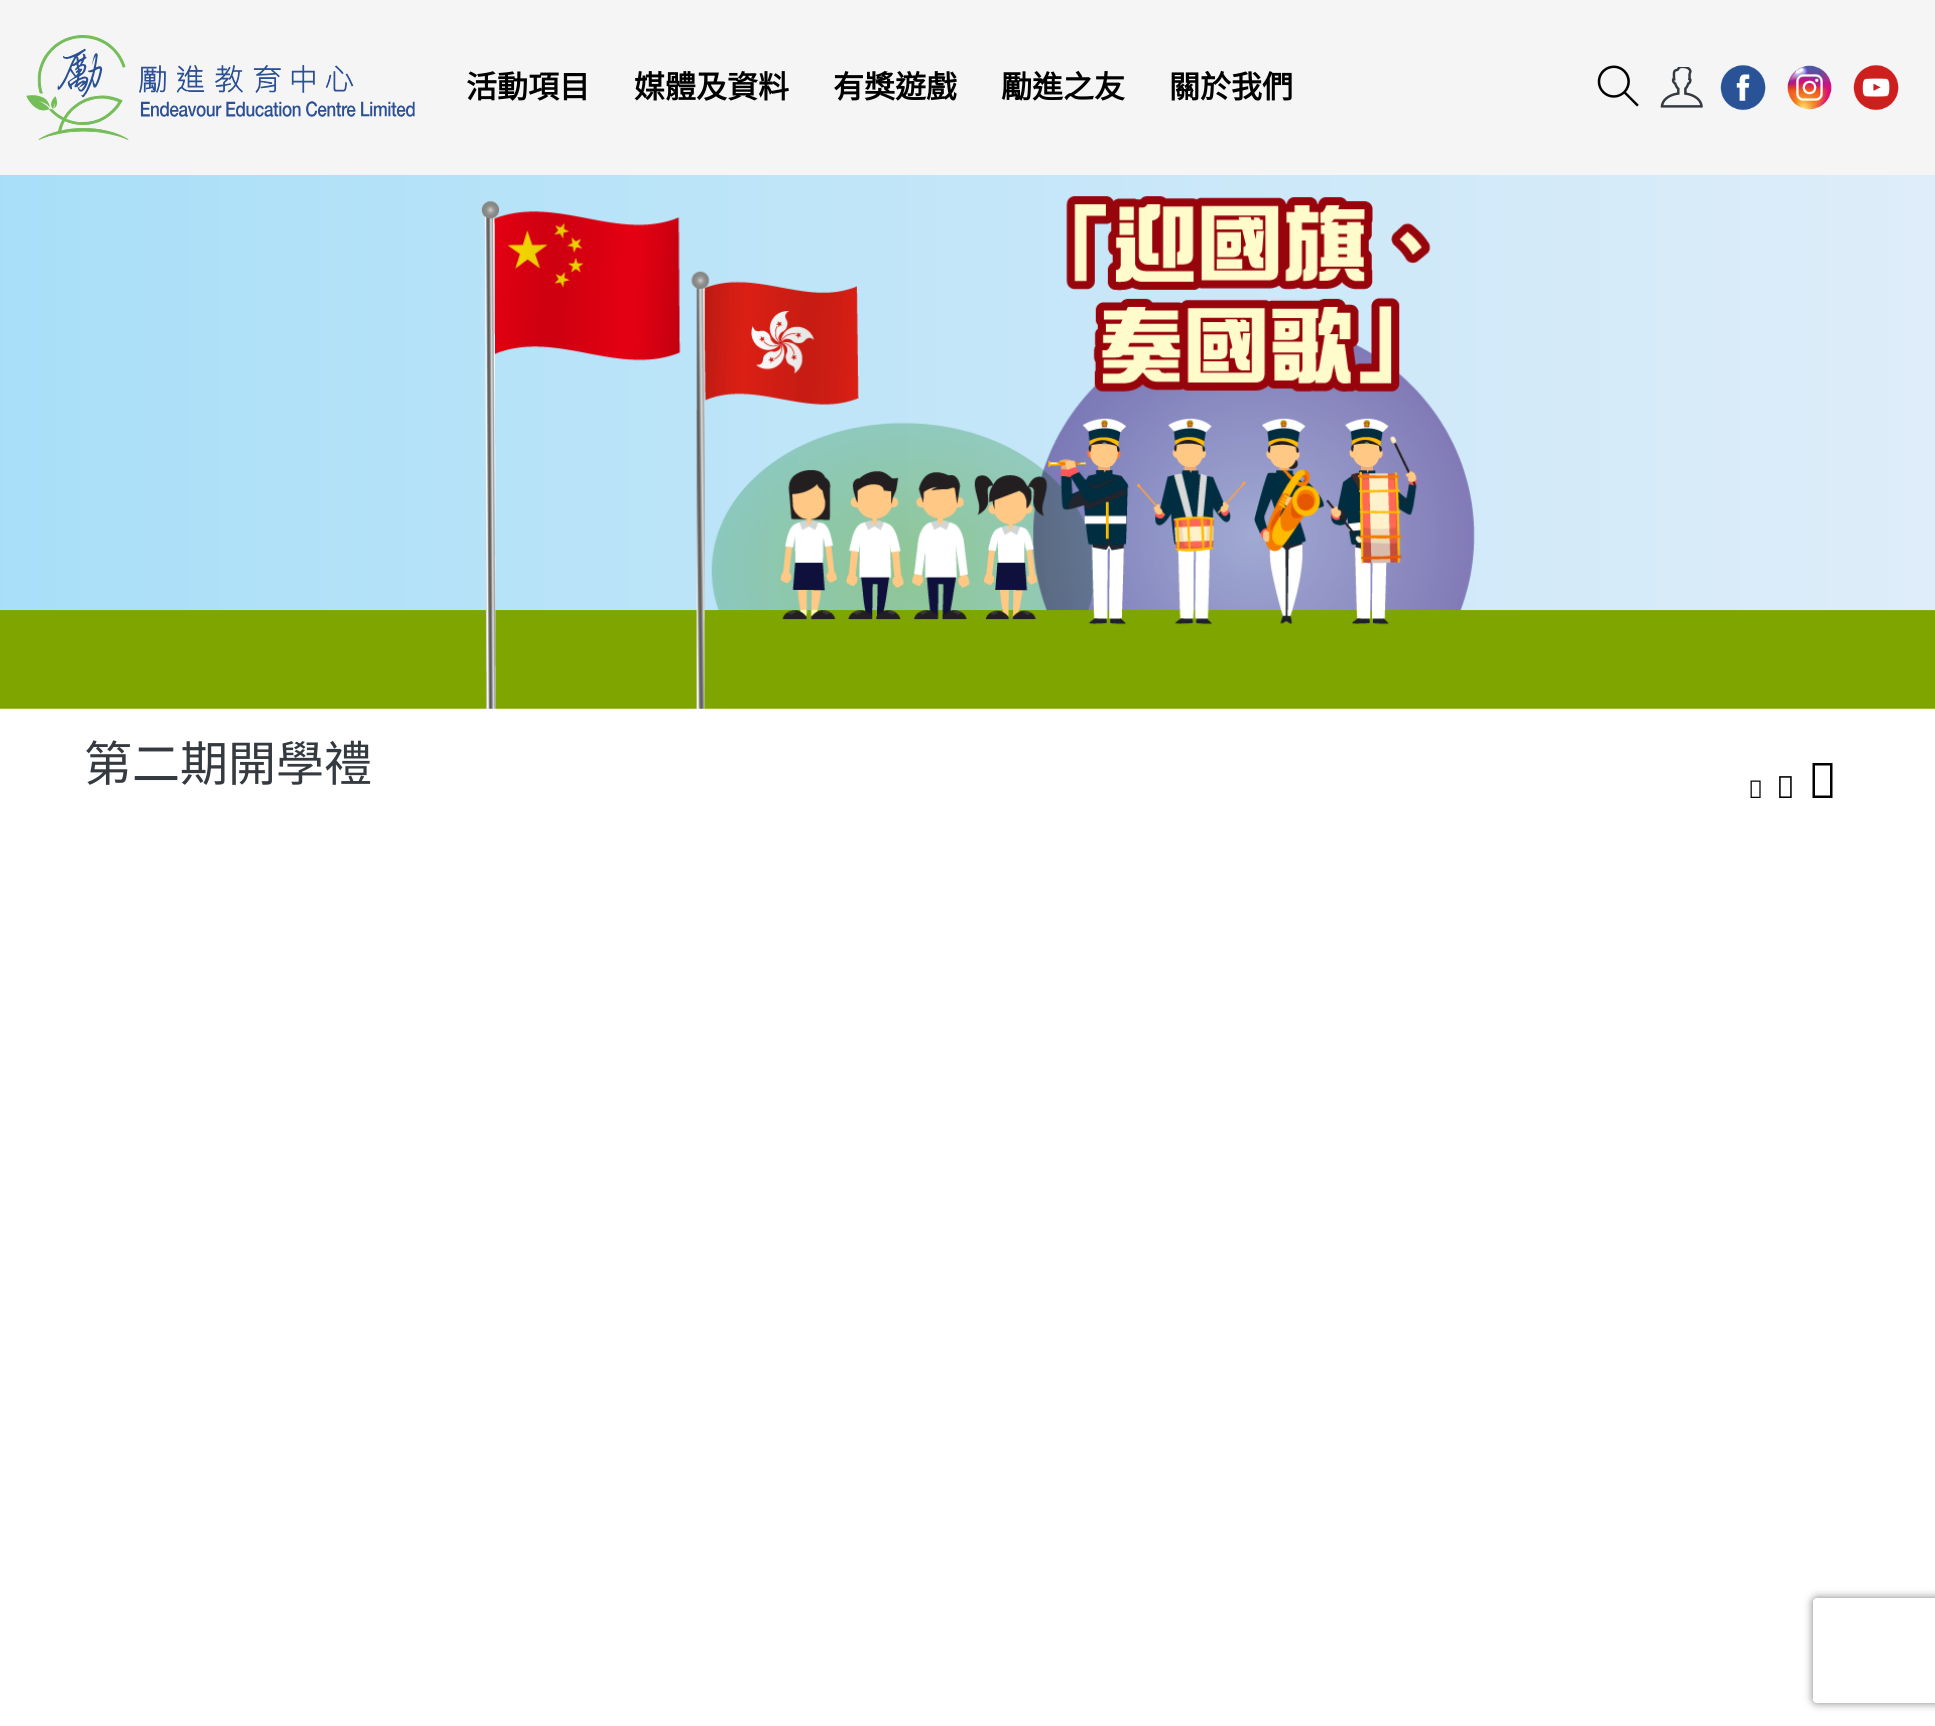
#include <cairo.h>
#include <math.h>
#include <stddef.h>

typedef struct { const char *family; double size; int italic, bold; unsigned color; } style_t;
static cairo_t *ctx;

static void ink(unsigned color) {
    cairo_set_source_rgb(ctx, (color >> 16) / 255.0, (color >> 8 & 255) / 255.0, (color & 255) / 255.0);
}

static void write(double x, double y, const char *s, const style_t *st) {
    cairo_select_font_face(ctx, st->family, st->italic ? CAIRO_FONT_SLANT_ITALIC : CAIRO_FONT_SLANT_NORMAL,
        st->bold ? CAIRO_FONT_WEIGHT_BOLD : CAIRO_FONT_WEIGHT_NORMAL);
    cairo_set_font_size(ctx, st->size);
    ink(st->color);
    cairo_move_to(ctx, x, y);
    cairo_show_text(ctx, s);
}

static void block(double x, double y, double w, double h, unsigned color) {
    ink(color);
    cairo_rectangle(ctx, x, y, w, h);
    cairo_fill(ctx);
}

static void round_path(double x, double y, double w, double h, double r) {
    cairo_new_sub_path(ctx);
    cairo_arc(ctx, x + w - r, y + h - r, r, 0, M_PI / 2);
    cairo_arc(ctx, x + r, y + h - r, r, M_PI / 2, M_PI);
    cairo_arc(ctx, x + r, y + r, r, M_PI, 1.5 * M_PI);
    cairo_arc(ctx, x + w - r, y + r, r, 1.5 * M_PI, 2 * M_PI);
    cairo_close_path(ctx);
}

static void blur_box(double x, double y, double w, double h, double r, double blur, double alpha) {
    cairo_push_group_with_content(ctx, CAIRO_CONTENT_ALPHA);
    cairo_set_operator(ctx, CAIRO_OPERATOR_SOURCE);
    for (int i = 15; i >= -15 && fmin(w, h) + blur * i / 3 > 0; i -= 2) {
        double e = blur * i / 6;
        cairo_set_source_rgba(ctx, 0, 0, 0, alpha * erfc((i - 1) / 8.5) / 2);
        round_path(x - e, y - e, w + 2 * e, h + 2 * e, fmax(0, fmin(r + e + blur * .6, fmin(w, h) / 2 + e)));
        cairo_fill(ctx);
    }
    cairo_pattern_t *soft = cairo_pop_group(ctx);
    cairo_mask(ctx, soft);
    cairo_pattern_destroy(soft);
}

static void paste(const char *path, double x, double y, double w, double h) {
    cairo_surface_t *image = cairo_image_surface_create_from_png(path);
    cairo_save(ctx);
    cairo_set_source_surface(ctx, image, x, y);
    cairo_rectangle(ctx, x, y, w, h);
    cairo_fill(ctx);
    cairo_restore(ctx);
    cairo_surface_destroy(image);
}

static const style_t s1 = {"Noto Sans CJK TC", 31, 0, 1, 0x000000};
static const style_t s2 = {"Noto Sans CJK TC", 48, 0, 0, 0x343a40};

int main(void) {
    cairo_surface_t *surface = cairo_image_surface_create(CAIRO_FORMAT_RGB24, 1935, 1726);
    ctx = cairo_create(surface);
    cairo_font_options_t *options = cairo_font_options_create();
    cairo_font_options_set_hint_metrics(options, CAIRO_HINT_METRICS_OFF);
    cairo_font_options_set_hint_style(options, CAIRO_HINT_STYLE_NONE);
    cairo_set_font_options(ctx, options);
    cairo_set_miter_limit(ctx, 4);
    ink(0xffffff);
    cairo_paint(ctx);
    block(0, 0, 1935, 175, 0xf5f5f5);
    paste("pic1.png", 26, 35, 389, 105);
    write(466, 98, "活動項目", &s1);
    write(634, 98, "媒體及資料", &s1);
    write(833, 98, "有獎遊戲", &s1);
    write(1001, 98, "勵進之友", &s1);
    write(1169, 98, "關於我們", &s1);
    paste("pic2.png", 1597, 65, 42, 42);
    paste("pic3.png", 1660, 67, 43, 41);
    paste("pic4.png", 1720, 64, 46, 47);
    paste("pic5.png", 1787, 65, 45, 45);
    paste("pic6.png", 1853, 64, 46, 47);
    paste("pic7.png", 0, 175, 1935, 534);
    write(84, 781, "第二期開學禮", &s2);
    paste("pic8.png", 1750, 780, 11, 18);
    paste("pic9.png", 1779, 776, 13, 22);
    ink(0x000000);
    cairo_new_path(ctx);
    cairo_move_to(ctx, 1812.5, 798);
    cairo_line_to(ctx, 1812.5, 763);
    cairo_line_to(ctx, 1832.5, 763);
    cairo_line_to(ctx, 1832.5, 798);
    cairo_close_path(ctx);
    cairo_move_to(ctx, 1815, 795.5);
    cairo_line_to(ctx, 1830, 795.5);
    cairo_line_to(ctx, 1830, 765.5);
    cairo_line_to(ctx, 1815, 765.5);
    cairo_close_path(ctx);
    cairo_fill(ctx);
    cairo_save(ctx);
    cairo_set_fill_rule(ctx, CAIRO_FILL_RULE_EVEN_ODD);
    cairo_new_path(ctx);
    cairo_move_to(ctx, 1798, 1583);
    cairo_line_to(ctx, 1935, 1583);
    cairo_line_to(ctx, 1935, 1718);
    cairo_line_to(ctx, 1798, 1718);
    cairo_close_path(ctx);
    cairo_move_to(ctx, 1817, 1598);
    cairo_line_to(ctx, 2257, 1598);
    cairo_curve_to(ctx, 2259, 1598, 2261, 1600, 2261, 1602);
    cairo_line_to(ctx, 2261, 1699);
    cairo_curve_to(ctx, 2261, 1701, 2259, 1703, 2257, 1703);
    cairo_line_to(ctx, 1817, 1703);
    cairo_curve_to(ctx, 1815, 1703, 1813, 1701, 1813, 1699);
    cairo_line_to(ctx, 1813, 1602);
    cairo_curve_to(ctx, 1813, 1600, 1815, 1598, 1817, 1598);
    cairo_close_path(ctx);
    cairo_clip(ctx);
    ink(0x808080);
    blur_box(1813, 1598, 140, 105, 4, 4.5, 1);
    cairo_restore(ctx);
    cairo_surface_write_to_png(surface, "screenshot.png");
    cairo_font_options_destroy(options);
    cairo_destroy(ctx);
    cairo_surface_destroy(surface);
    return 0;
}
